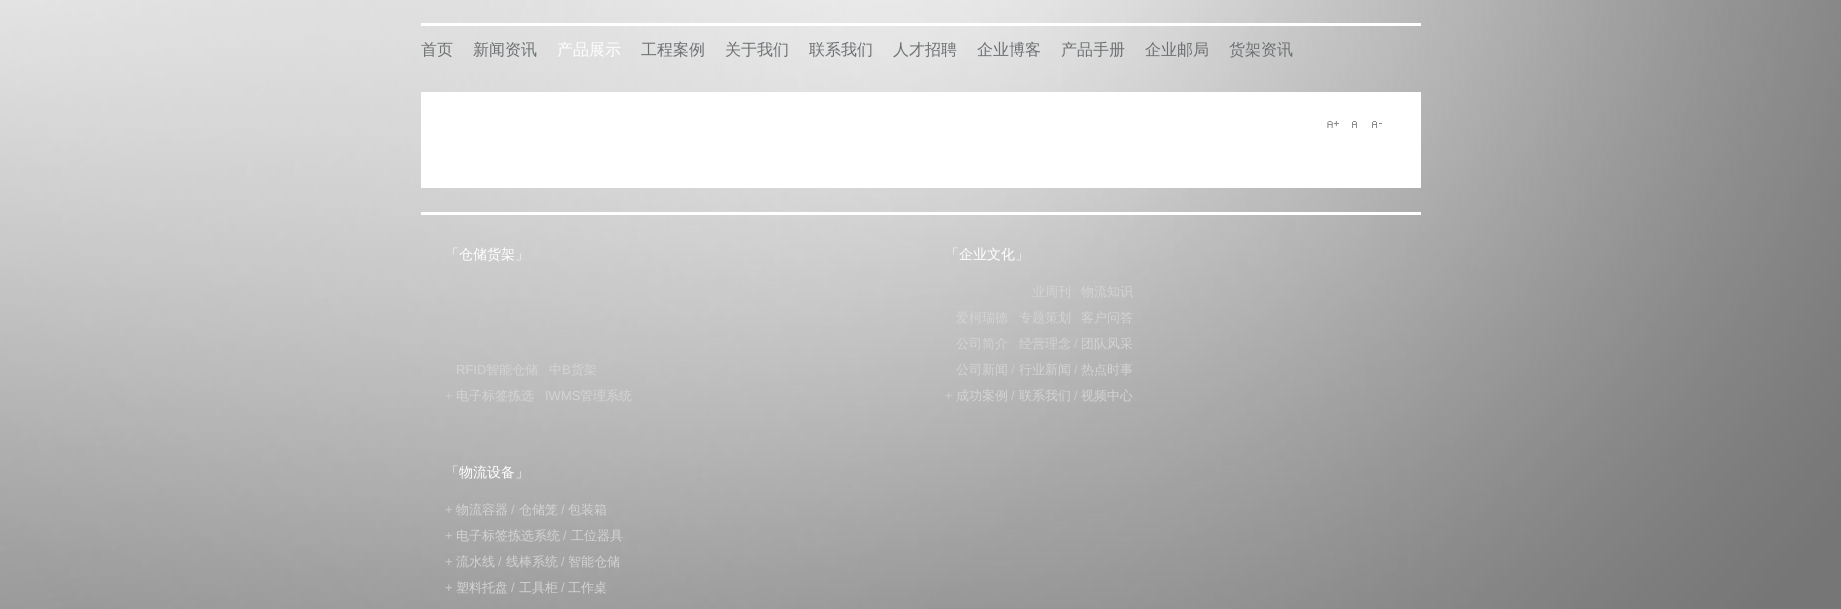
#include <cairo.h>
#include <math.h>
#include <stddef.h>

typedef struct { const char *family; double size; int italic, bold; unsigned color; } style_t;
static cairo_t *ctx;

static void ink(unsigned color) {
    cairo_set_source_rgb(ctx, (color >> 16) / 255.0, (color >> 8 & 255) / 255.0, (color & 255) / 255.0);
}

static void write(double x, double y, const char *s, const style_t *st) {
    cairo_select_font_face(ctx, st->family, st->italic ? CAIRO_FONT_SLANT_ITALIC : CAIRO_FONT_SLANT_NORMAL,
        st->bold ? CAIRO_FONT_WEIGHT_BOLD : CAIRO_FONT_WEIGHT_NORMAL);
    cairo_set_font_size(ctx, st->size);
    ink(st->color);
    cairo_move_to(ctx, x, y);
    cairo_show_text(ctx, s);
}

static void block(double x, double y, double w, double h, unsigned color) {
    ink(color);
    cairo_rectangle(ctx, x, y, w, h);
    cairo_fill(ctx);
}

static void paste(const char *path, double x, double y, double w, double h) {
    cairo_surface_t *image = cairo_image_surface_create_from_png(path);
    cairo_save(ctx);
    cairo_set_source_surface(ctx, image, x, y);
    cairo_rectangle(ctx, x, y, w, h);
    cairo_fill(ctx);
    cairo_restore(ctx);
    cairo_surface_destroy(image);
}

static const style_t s1 = {"WenQuanYi Zen Hei Medium", 16, 0, 0, 0x6c7072};
static const style_t s2 = {"WenQuanYi Zen Hei Medium", 16, 0, 0, 0xffffff};
static const style_t s3 = {"WenQuanYi Zen Hei Medium", 14, 0, 0, 0xffffff};
static const style_t s4 = {"Liberation Sans", 13, 0, 0, 0xd3d3d3};
static const style_t s5 = {"WenQuanYi Zen Hei Medium", 13, 0, 0, 0xd3d3d3};
static const style_t s6 = {"Liberation Sans", 13, 0, 0, 0xcccccc};

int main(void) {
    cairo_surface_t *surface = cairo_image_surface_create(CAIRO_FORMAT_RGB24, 1841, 609);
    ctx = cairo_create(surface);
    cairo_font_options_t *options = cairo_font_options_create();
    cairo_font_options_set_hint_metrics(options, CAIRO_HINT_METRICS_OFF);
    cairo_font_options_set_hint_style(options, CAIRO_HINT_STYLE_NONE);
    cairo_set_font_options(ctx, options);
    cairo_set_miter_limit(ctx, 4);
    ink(0xffffff);
    cairo_paint(ctx);
    paste("pic1.png", 0, 0, 1841, 609);
    block(421, 23, 1000, 3, 0xffffff);
    write(421, 55, "首页", &s1);
    write(473, 55, "新闻资讯", &s1);
    write(557, 55, "产品展示", &s2);
    write(641, 55, "工程案例", &s1);
    write(725, 55, "关于我们", &s1);
    write(809, 55, "联系我们", &s1);
    write(893, 55, "人才招聘", &s1);
    write(977, 55, "企业博客", &s1);
    write(1061, 55, "产品手册", &s1);
    write(1145, 55, "企业邮局", &s1);
    write(1229, 55, "货架资讯", &s1);
    block(421, 92, 1000, 96, 0xffffff);
    paste("pic2.png", 1327, 121, 12, 7);
    paste("pic3.png", 1352, 121, 5, 7);
    paste("pic4.png", 1372, 121, 10, 7);
    block(421, 212, 1000, 3, 0xffffff);
    write(445, 259, "「仓储货架」", &s3);
    write(456, 374, "RFID", &s4);
    write(486, 374, "智能仓储", &s5);
    write(549, 374, "中", &s5);
    write(562, 374, "B", &s4);
    write(571, 374, "货架", &s5);
    write(445, 400, "+", &s6);
    write(456, 400, "电子标签拣选", &s5);
    write(545, 400, "IWMS", &s4);
    write(580, 400, "管理系统", &s5);
    write(945, 259, "「企业文化」", &s3);
    write(1032, 296, "业周刊", &s5);
    write(1081, 296, "物流知识", &s5);
    write(956, 322, "爱柯瑞德", &s5);
    write(1019, 322, "专题策划", &s5);
    write(1081, 322, "客户问答", &s5);
    write(956, 348, "公司简介", &s5);
    write(1019, 348, "经营理念", &s5);
    write(1074, 348, "/", &s6);
    write(1081, 348, "团队风采", &s5);
    write(956, 374, "公司新闻", &s5);
    write(1011, 374, "/", &s6);
    write(1019, 374, "行业新闻", &s5);
    write(1074, 374, "/", &s6);
    write(1081, 374, "热点时事", &s5);
    write(945, 400, "+", &s6);
    write(956, 400, "成功案例", &s5);
    write(1011, 400, "/", &s6);
    write(1019, 400, "联系我们", &s5);
    write(1074, 400, "/", &s6);
    write(1081, 400, "视频中心", &s5);
    write(445, 477, "「物流设备」", &s3);
    write(445, 514, "+", &s6);
    write(456, 514, "物流容器", &s5);
    write(511, 514, "/", &s6);
    write(519, 514, "仓储笼", &s5);
    write(561, 514, "/", &s6);
    write(568, 514, "包装箱", &s5);
    write(445, 540, "+", &s6);
    write(456, 540, "电子标签拣选系统", &s5);
    write(563, 540, "/", &s6);
    write(571, 540, "工位器具", &s5);
    write(445, 566, "+", &s6);
    write(456, 566, "流水线", &s5);
    write(498, 566, "/", &s6);
    write(506, 566, "线棒系统", &s5);
    write(561, 566, "/", &s6);
    write(568, 566, "智能仓储", &s5);
    write(445, 592, "+", &s6);
    write(456, 592, "塑料托盘", &s5);
    write(511, 592, "/", &s6);
    write(519, 592, "工具柜", &s5);
    write(561, 592, "/", &s6);
    write(568, 592, "工作桌", &s5);
    cairo_surface_write_to_png(surface, "screenshot.png");
    cairo_font_options_destroy(options);
    cairo_destroy(ctx);
    cairo_surface_destroy(surface);
    return 0;
}
